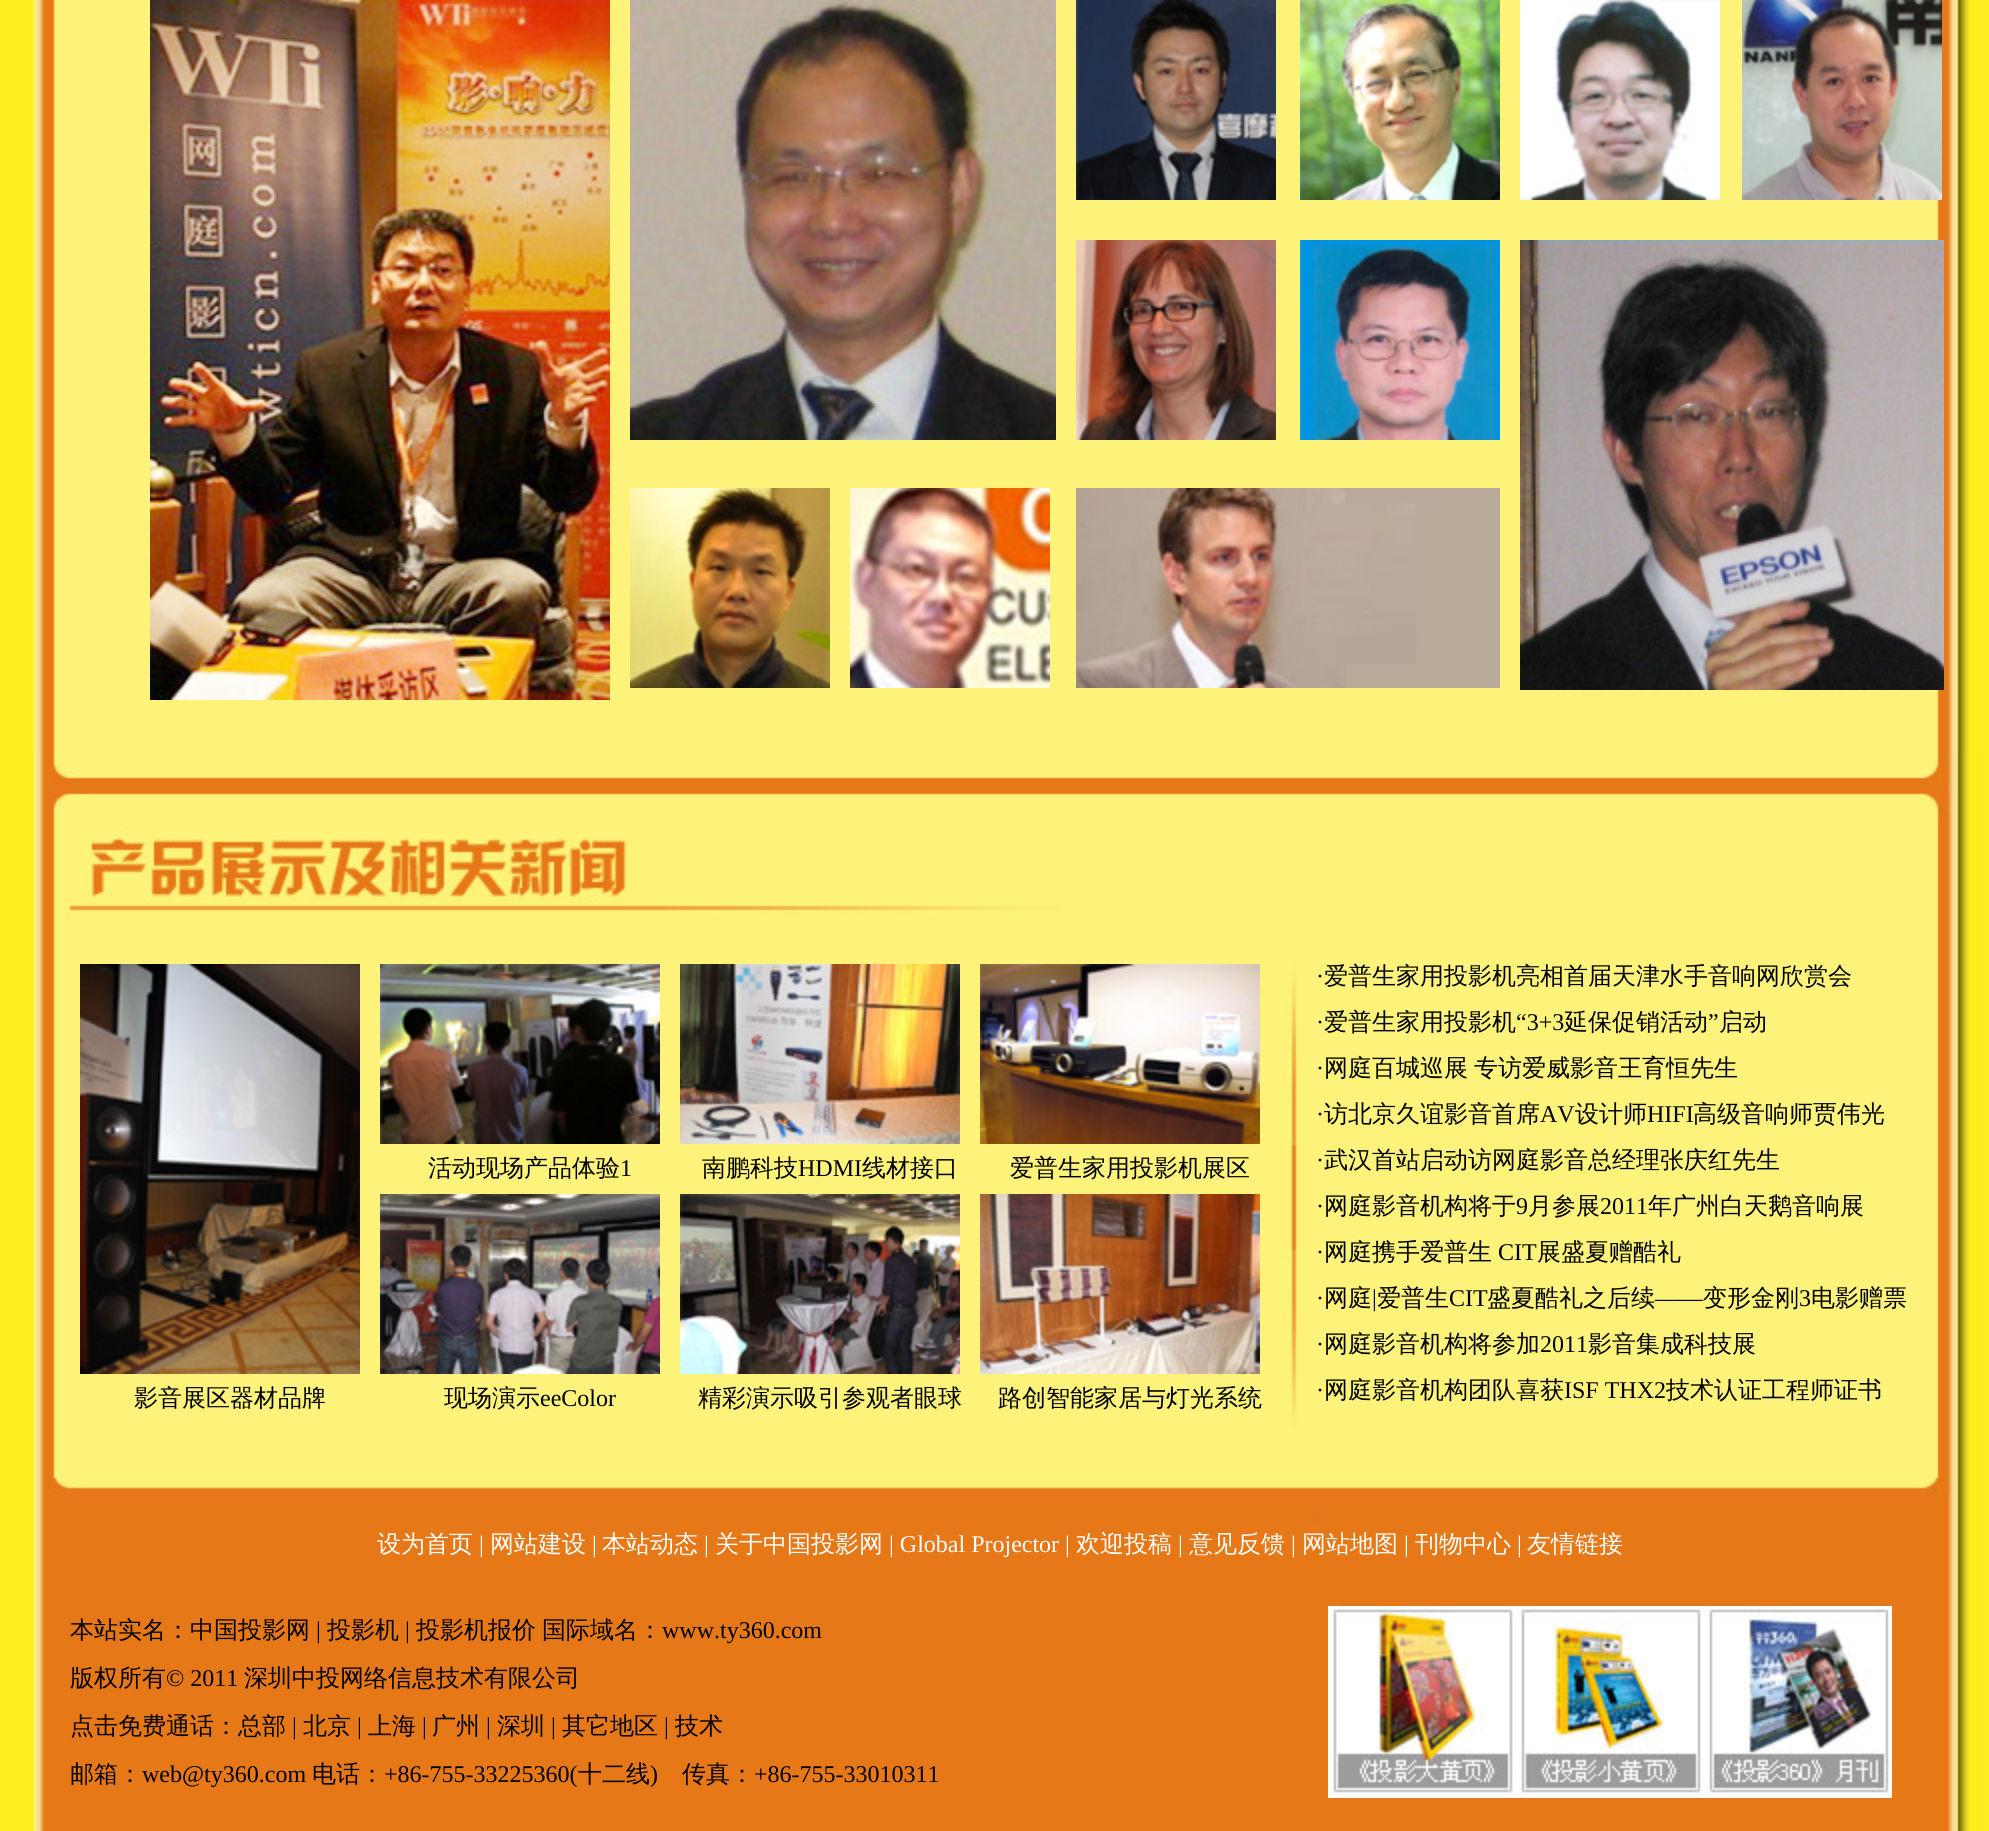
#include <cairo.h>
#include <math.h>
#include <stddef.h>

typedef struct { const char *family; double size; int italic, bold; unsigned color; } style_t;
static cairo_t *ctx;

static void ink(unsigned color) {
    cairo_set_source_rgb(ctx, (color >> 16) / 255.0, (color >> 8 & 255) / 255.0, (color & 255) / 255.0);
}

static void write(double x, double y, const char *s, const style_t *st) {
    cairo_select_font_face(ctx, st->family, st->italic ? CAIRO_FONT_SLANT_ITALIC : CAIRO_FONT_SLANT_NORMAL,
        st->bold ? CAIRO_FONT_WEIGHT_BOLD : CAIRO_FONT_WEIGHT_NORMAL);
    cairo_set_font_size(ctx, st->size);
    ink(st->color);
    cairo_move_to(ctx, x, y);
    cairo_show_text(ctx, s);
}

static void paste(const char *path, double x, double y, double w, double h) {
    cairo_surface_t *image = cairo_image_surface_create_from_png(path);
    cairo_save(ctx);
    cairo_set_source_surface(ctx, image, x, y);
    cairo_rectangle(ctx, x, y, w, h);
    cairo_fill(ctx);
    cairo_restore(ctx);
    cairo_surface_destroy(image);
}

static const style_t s1 = {"WenQuanYi Zen Hei Medium", 24, 0, 0, 0x000000};
static const style_t s2 = {"Liberation Serif", 24, 0, 0, 0x000000};
static const style_t s3 = {"WenQuanYi Zen Hei Medium", 24, 0, 0, 0xffffff};
static const style_t s4 = {"Liberation Serif", 24, 0, 0, 0xffffff};

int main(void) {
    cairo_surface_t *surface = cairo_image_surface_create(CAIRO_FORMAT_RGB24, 1989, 1831);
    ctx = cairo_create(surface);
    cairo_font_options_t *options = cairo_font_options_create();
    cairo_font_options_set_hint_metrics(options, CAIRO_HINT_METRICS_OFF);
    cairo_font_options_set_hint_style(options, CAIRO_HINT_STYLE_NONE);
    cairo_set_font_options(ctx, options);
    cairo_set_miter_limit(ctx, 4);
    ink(0xffffff);
    cairo_paint(ctx);
    paste("pic1.png", 0, 0, 1989, 752);
    paste("pic2.png", 150, 0, 460, 700);
    paste("pic3.png", 630, 0, 426, 440);
    paste("pic4.png", 1076, 0, 200, 200);
    paste("pic5.png", 1300, 0, 200, 200);
    paste("pic6.png", 1520, 0, 200, 200);
    paste("pic7.png", 1742, 0, 200, 200);
    paste("pic8.png", 630, 488, 200, 200);
    paste("pic9.png", 850, 488, 200, 200);
    paste("pic10.png", 1076, 240, 200, 200);
    paste("pic11.png", 1300, 240, 200, 200);
    paste("pic12.png", 1520, 240, 424, 450);
    paste("pic13.png", 1076, 488, 424, 200);
    paste("pic14.png", 0, 752, 1989, 40);
    paste("pic15.png", 0, 792, 1989, 132);
    paste("pic16.png", 0, 924, 1989, 554);
    paste("pic17.png", 80, 964, 280, 410);
    paste("pic18.png", 380, 964, 280, 180);
    paste("pic19.png", 680, 964, 280, 180);
    paste("pic20.png", 980, 964, 280, 180);
    write(428, 1176, "活动现场产品体验", &s1);
    write(620, 1176, "1", &s2);
    write(702, 1176, "南鹏科技", &s1);
    write(798, 1176, "HDMI", &s2);
    write(862, 1176, "线材接口", &s1);
    write(1010, 1176, "爱普生家用投影机展区", &s1);
    paste("pic21.png", 380, 1194, 280, 180);
    paste("pic22.png", 680, 1194, 280, 180);
    paste("pic23.png", 980, 1194, 280, 180);
    write(134, 1406, "影音展区器材品牌", &s1);
    write(444, 1406, "现场演示", &s1);
    write(540, 1406, "eeColor", &s2);
    write(698, 1406, "精彩演示吸引参观者眼球", &s1);
    write(998, 1406, "路创智能家居与灯光系统", &s1);
    write(1316, 984, "·", &s2);
    write(1324, 984, "爱普生家用投影机亮相首届天津水手音响网欣赏会", &s1);
    write(1324, 1030, "爱普生家用投影机", &s1);
    write(1516, 1030, "“3+3", &s2);
    write(1564, 1030, "延保促销活动", &s1);
    write(1708, 1030, "”", &s2);
    write(1719, 1030, "启动", &s1);
    write(1316, 1030, "·", &s2);
    write(1316, 1076, "·", &s2);
    write(1324, 1076, "网庭百城巡展", &s1);
    write(1474, 1076, "专访爱威影音王育恒先生", &s1);
    write(1316, 1122, "·", &s2);
    write(1324, 1122, "访北京久谊影音首席", &s1);
    write(1540, 1122, "AV", &s2);
    write(1575, 1122, "设计师", &s1);
    write(1647, 1122, "HIFI", &s2);
    write(1693, 1122, "高级音响师贾伟光", &s1);
    write(1316, 1168, "·", &s2);
    write(1324, 1168, "武汉首站启动访网庭影音总经理张庆红先生", &s1);
    write(1316, 1214, "·", &s2);
    write(1324, 1214, "网庭影音机构将于", &s1);
    write(1516, 1214, "9", &s2);
    write(1528, 1214, "月参展", &s1);
    write(1600, 1214, "2011", &s2);
    write(1648, 1214, "年广州白天鹅音响展", &s1);
    write(1316, 1260, "·", &s2);
    write(1324, 1260, "网庭携手爱普生", &s1);
    write(1498, 1260, "CIT", &s2);
    write(1537, 1260, "展盛夏赠酷礼", &s1);
    write(1316, 1306, "·", &s2);
    write(1324, 1306, "网庭", &s1);
    write(1372, 1306, "|", &s2);
    write(1377, 1306, "爱普生", &s1);
    write(1449, 1306, "CIT", &s2);
    write(1487, 1306, "盛夏酷礼之后续", &s1);
    write(1655, 1306, "——", &s2);
    write(1703, 1306, "变形金刚", &s1);
    write(1799, 1306, "3", &s2);
    write(1811, 1306, "电影赠票", &s1);
    write(1316, 1352, "·", &s2);
    write(1324, 1352, "网庭影音机构将参加", &s1);
    write(1540, 1352, "2011", &s2);
    write(1588, 1352, "影音集成科技展", &s1);
    write(1316, 1398, "·", &s2);
    write(1324, 1398, "网庭影音机构团队喜获", &s1);
    write(1564, 1398, "ISF THX2", &s2);
    write(1666, 1398, "技术认证工程师证书", &s1);
    paste("pic24.png", 0, 1478, 1989, 40);
    paste("pic25.png", 0, 1518, 1989, 313);
    write(377, 1552, "设为首页", &s3);
    write(479, 1552, "|", &s4);
    write(490, 1552, "网站建设", &s3);
    write(592, 1552, "|", &s4);
    write(602, 1552, "本站动态", &s3);
    write(704, 1552, "|", &s4);
    write(715, 1552, "关于中国投影网", &s3);
    write(889, 1552, "| Global Projector |", &s4);
    write(1076, 1552, "欢迎投稿", &s3);
    write(1178, 1552, "|", &s4);
    write(1189, 1552, "意见反馈", &s3);
    write(1291, 1552, "|", &s4);
    write(1302, 1552, "网站地图", &s3);
    write(1404, 1552, "|", &s4);
    write(1415, 1552, "刊物中心", &s3);
    write(1517, 1552, "|", &s4);
    write(1527, 1552, "友情链接", &s3);
    write(70, 1638, "本站实名：中国投影网", &s1);
    write(316, 1638, "|", &s2);
    write(327, 1638, "投影机", &s1);
    write(405, 1638, "|", &s2);
    write(416, 1638, "投影机报价", &s1);
    write(542, 1638, "国际域名：", &s1);
    write(662, 1638, "www.ty360.com", &s2);
    write(70, 1686, "版权所有", &s1);
    write(166, 1686, "© 2011", &s2);
    write(244, 1686, "深圳中投网络信息技术有限公司", &s1);
    write(70, 1734, "点击免费通话：总部", &s1);
    write(292, 1734, "|", &s2);
    write(303, 1734, "北京", &s1);
    write(357, 1734, "|", &s2);
    write(368, 1734, "上海", &s1);
    write(422, 1734, "|", &s2);
    write(432, 1734, "广州", &s1);
    write(486, 1734, "|", &s2);
    write(497, 1734, "深圳", &s1);
    write(551, 1734, "|", &s2);
    write(562, 1734, "其它地区", &s1);
    write(664, 1734, "|", &s2);
    write(675, 1734, "技术", &s1);
    write(70, 1782, "邮箱：", &s1);
    write(142, 1782, "web@ty360.com", &s2);
    write(312, 1782, "电话：", &s1);
    write(384, 1782, "+86-755-33225360(", &s2);
    write(578, 1782, "十二线", &s1);
    write(650, 1782, ")", &s2);
    write(682, 1782, "传真：", &s1);
    write(754, 1782, "+86-755-33010311", &s2);
    paste("pic26.png", 1328, 1606, 564, 192);
    cairo_surface_write_to_png(surface, "screenshot.png");
    cairo_font_options_destroy(options);
    cairo_destroy(ctx);
    cairo_surface_destroy(surface);
    return 0;
}
